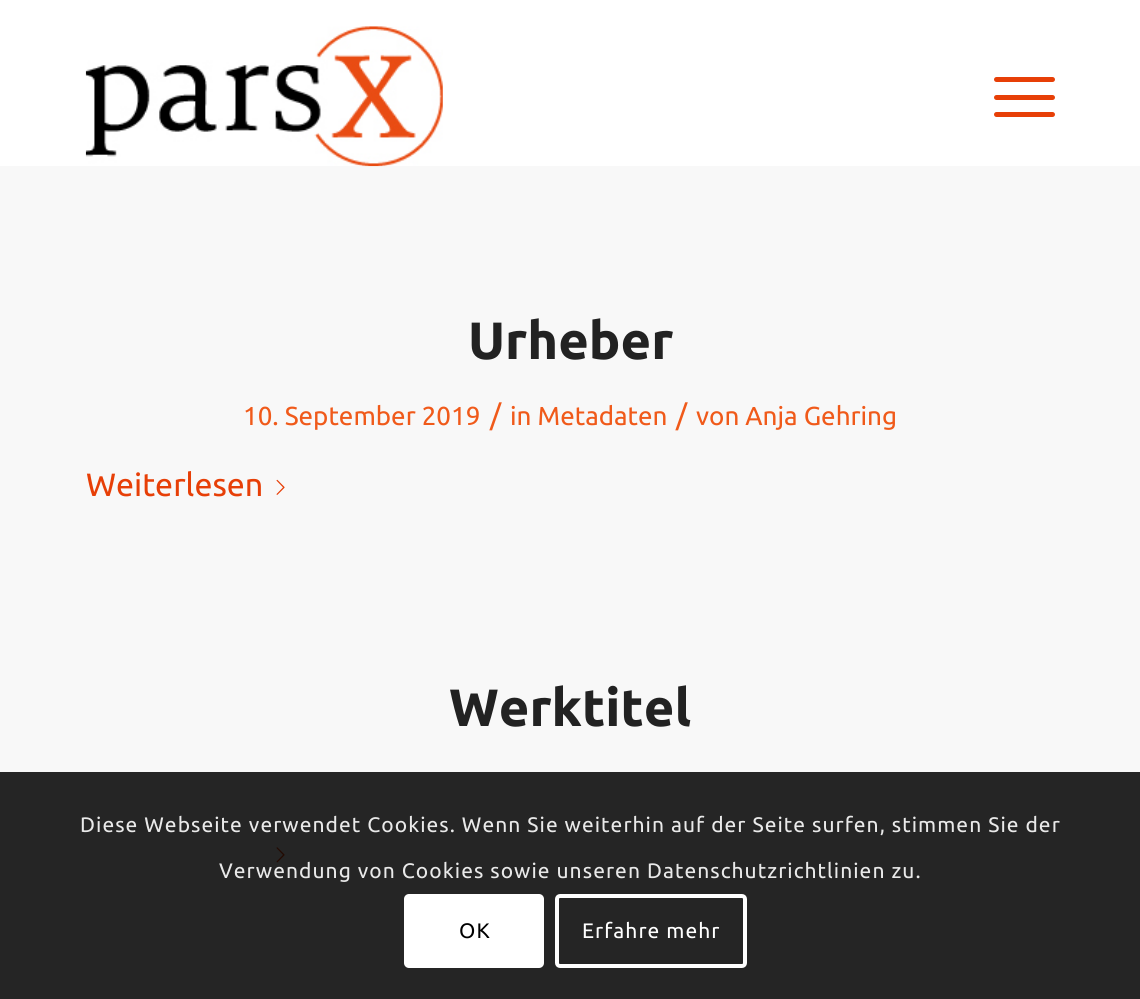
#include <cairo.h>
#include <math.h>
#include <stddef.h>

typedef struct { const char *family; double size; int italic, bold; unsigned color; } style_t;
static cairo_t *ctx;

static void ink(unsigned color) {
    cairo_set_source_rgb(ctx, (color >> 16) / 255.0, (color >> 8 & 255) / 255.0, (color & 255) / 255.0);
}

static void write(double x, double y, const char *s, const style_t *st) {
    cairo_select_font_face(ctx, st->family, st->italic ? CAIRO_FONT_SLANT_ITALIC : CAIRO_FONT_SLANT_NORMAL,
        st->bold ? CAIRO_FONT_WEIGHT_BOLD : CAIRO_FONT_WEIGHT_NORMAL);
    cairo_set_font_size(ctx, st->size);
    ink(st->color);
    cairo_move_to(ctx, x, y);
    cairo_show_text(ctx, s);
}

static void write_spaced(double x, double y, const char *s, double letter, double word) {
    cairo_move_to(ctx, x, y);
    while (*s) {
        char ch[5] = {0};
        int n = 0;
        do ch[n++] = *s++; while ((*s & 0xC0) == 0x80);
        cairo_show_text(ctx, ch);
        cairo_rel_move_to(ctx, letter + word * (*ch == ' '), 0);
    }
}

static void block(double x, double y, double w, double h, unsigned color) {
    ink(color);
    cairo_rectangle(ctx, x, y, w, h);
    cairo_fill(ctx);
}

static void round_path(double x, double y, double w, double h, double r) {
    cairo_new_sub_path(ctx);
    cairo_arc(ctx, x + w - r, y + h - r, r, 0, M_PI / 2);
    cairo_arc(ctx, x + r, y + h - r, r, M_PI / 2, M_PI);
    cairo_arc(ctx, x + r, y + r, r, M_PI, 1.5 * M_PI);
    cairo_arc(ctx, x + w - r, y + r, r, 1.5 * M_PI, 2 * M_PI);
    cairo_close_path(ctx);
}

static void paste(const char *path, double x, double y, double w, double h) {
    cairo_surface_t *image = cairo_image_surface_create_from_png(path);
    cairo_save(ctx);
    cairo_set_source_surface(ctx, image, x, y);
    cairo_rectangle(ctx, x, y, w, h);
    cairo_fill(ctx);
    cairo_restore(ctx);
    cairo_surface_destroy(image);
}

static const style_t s1 = {"Ubuntu", 52.5, 0, 1, 0x222222};
static const style_t s2 = {"Ubuntu", 26, 0, 0, 0xf05a1a};
static const style_t s3 = {"Ubuntu", 29, 0, 0, 0xf05a1a};
static const style_t s4 = {"Ubuntu", 32.25, 0, 0, 0xe73f07};

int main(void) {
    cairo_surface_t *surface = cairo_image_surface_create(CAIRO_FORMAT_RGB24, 1140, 999);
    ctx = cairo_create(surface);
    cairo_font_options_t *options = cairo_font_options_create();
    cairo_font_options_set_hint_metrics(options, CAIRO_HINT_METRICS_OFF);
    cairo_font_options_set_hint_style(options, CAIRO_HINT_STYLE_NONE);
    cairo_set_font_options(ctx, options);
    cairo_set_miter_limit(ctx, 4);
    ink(0xf8f8f8);
    cairo_paint(ctx);
    block(0, 0, 1140, 166, 0xffffff);
    paste("pic1.png", 85, 26, 358, 141);
    ink(0xe73f07);
    round_path(994, 95, 61, 5, 2.5);
    cairo_fill(ctx);
    round_path(994, 77, 61, 5, 2.5);
    cairo_fill(ctx);
    round_path(994, 112, 61, 5, 2.5);
    cairo_fill(ctx);
    write(468, 359, "Urheber", &s1);
    write(243, 425, "10. September 2019", &s2);
    write(490, 425, "/", &s3);
    write(510, 425, "in Metadaten", &s2);
    write(676, 425, "/", &s3);
    write(696, 425, "von Anja Gehring", &s2);
    write(86, 496, "Weiterlesen", &s4);
    paste("pic2.png", 276, 479, 9, 16);
    write(449, 726, "Werktitel", &s1);
    paste("pic3.png", 276, 847, 9, 16);
    cairo_set_source_rgba(ctx, 0, 0, 0, 0.85);
    cairo_rectangle(ctx, 0, 772, 1140, 227);
    cairo_fill(ctx);
    cairo_select_font_face(ctx, "Ubuntu", CAIRO_FONT_SLANT_NORMAL, CAIRO_FONT_WEIGHT_NORMAL);
    cairo_set_font_size(ctx, 21);
    ink(0xe9e9e9);
    write_spaced(80, 832, "Diese Webseite verwendet Cookies. Wenn Sie weiterhin auf der Seite surfen, stimmen Sie der", 1.05, 0);
    write_spaced(219, 878, "Verwendung von Cookies sowie unseren Datenschutzrichtlinien zu.", 1.05, 0);
    ink(0xffffff);
    round_path(404, 894, 140, 74, 5);
    cairo_fill(ctx);
    ink(0x000000);
    write_spaced(459, 938, "OK", 1.05, 0);
    round_path(557, 896, 188, 70, 3);
    ink(0xffffff);
    cairo_set_line_width(ctx, 4);
    cairo_stroke(ctx);
    write_spaced(582, 938, "Erfahre mehr", 1.05, 0);
    cairo_surface_write_to_png(surface, "screenshot.png");
    cairo_font_options_destroy(options);
    cairo_destroy(ctx);
    cairo_surface_destroy(surface);
    return 0;
}
